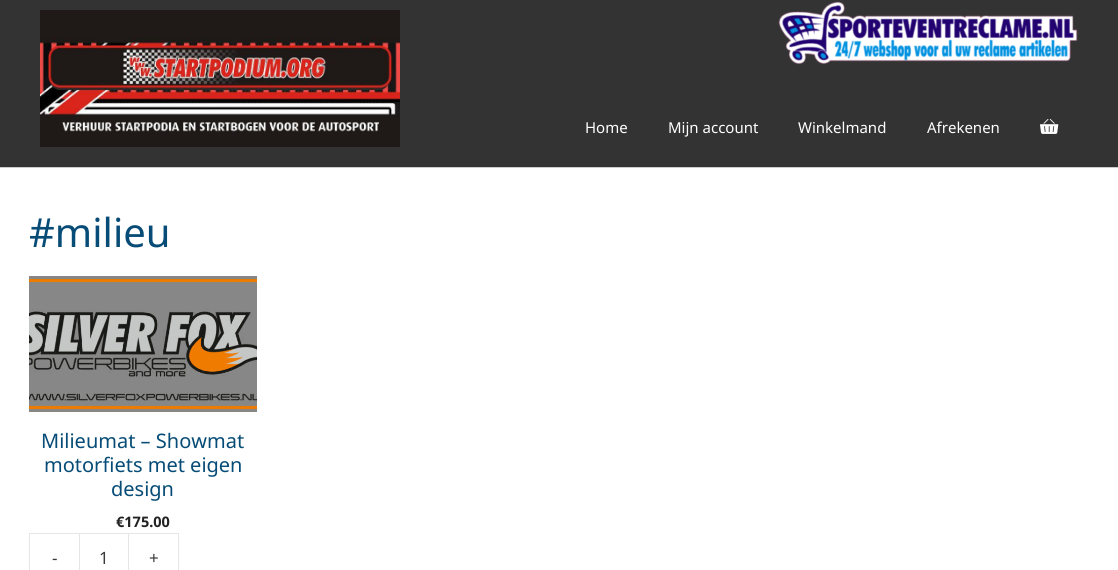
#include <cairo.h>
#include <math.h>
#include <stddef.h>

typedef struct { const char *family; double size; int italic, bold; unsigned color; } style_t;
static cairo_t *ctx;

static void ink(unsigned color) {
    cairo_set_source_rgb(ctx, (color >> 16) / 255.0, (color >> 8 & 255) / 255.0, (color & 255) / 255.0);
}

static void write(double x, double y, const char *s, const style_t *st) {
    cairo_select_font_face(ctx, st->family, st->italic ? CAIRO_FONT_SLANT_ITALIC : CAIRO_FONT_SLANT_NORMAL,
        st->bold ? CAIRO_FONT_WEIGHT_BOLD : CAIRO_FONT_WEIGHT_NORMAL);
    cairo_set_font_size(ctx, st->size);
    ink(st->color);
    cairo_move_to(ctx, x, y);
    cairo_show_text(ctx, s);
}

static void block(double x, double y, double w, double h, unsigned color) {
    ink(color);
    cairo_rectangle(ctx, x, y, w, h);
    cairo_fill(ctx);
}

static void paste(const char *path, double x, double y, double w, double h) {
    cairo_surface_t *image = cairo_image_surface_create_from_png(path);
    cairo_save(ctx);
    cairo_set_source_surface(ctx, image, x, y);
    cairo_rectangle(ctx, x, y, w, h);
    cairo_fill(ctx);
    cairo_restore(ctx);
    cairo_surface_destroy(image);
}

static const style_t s1 = {"Noto Sans", 15, 0, 0, 0xffffff};
static const style_t s2 = {"Noto Sans", 40, 0, 0, 0x064c76};
static const style_t s3 = {"Noto Sans", 20, 0, 0, 0x064c76};
static const style_t s4 = {"Noto Sans", 14.5, 0, 1, 0x222222};
static const style_t s5 = {"Noto Sans", 17, 0, 0, 0x3a3a3a};

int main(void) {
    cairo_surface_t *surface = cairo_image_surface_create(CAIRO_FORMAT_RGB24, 1118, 570);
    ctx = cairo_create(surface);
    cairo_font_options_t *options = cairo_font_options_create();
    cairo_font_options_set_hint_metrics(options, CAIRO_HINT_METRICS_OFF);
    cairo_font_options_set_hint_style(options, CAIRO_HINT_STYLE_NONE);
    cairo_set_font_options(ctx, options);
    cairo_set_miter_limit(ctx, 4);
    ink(0xffffff);
    cairo_paint(ctx);
    block(0, 0, 1118, 167, 0x333333);
    block(0, 167, 1118, 1, 0xcccccc);
    paste("pic1.png", 40, 10, 360, 137);
    paste("pic2.png", 778, 1, 300, 64);
    write(585, 133, "Home", &s1);
    write(668, 133, "Mijn account", &s1);
    write(798, 133, "Winkelmand", &s1);
    write(927, 133, "Afrekenen", &s1);
    paste("pic3.png", 1040, 119, 19, 15);
    write(29, 247, "#milieu", &s2);
    paste("pic4.png", 29, 276, 228, 136);
    write(41, 448, "Milieumat – Showmat", &s3);
    write(44, 472, "motorfiets met eigen", &s3);
    write(111, 496, "design", &s3);
    write(116, 527, "€175.00", &s4);
    ink(0xe6e6e6);
    cairo_new_path(ctx);
    cairo_move_to(ctx, 29, 533);
    cairo_line_to(ctx, 79, 533);
    cairo_line_to(ctx, 79, 534);
    cairo_line_to(ctx, 30, 534);
    cairo_close_path(ctx);
    cairo_fill(ctx);
    cairo_set_source_rgba(ctx, 0, 0, 0, 0.1);
    cairo_new_path(ctx);
    cairo_move_to(ctx, 29, 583);
    cairo_line_to(ctx, 29, 533);
    cairo_line_to(ctx, 30, 534);
    cairo_line_to(ctx, 30, 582);
    cairo_close_path(ctx);
    cairo_fill(ctx);
    write(52, 564, "-", &s5);
    cairo_rectangle(ctx, 79.5, 533.5, 49, 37);
    ink(0xe6e6e6);
    cairo_set_line_width(ctx, 1);
    cairo_stroke(ctx);
    write(99, 564, "1", &s5);
    ink(0xe6e6e6);
    cairo_new_path(ctx);
    cairo_move_to(ctx, 129, 533);
    cairo_line_to(ctx, 179, 533);
    cairo_line_to(ctx, 178, 534);
    cairo_line_to(ctx, 129, 534);
    cairo_close_path(ctx);
    cairo_fill(ctx);
    cairo_set_source_rgba(ctx, 0, 0, 0, 0.1);
    cairo_new_path(ctx);
    cairo_move_to(ctx, 179, 533);
    cairo_line_to(ctx, 179, 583);
    cairo_line_to(ctx, 178, 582);
    cairo_line_to(ctx, 178, 534);
    cairo_close_path(ctx);
    cairo_fill(ctx);
    write(149, 564, "+", &s5);
    cairo_surface_write_to_png(surface, "screenshot.png");
    cairo_font_options_destroy(options);
    cairo_destroy(ctx);
    cairo_surface_destroy(surface);
    return 0;
}
